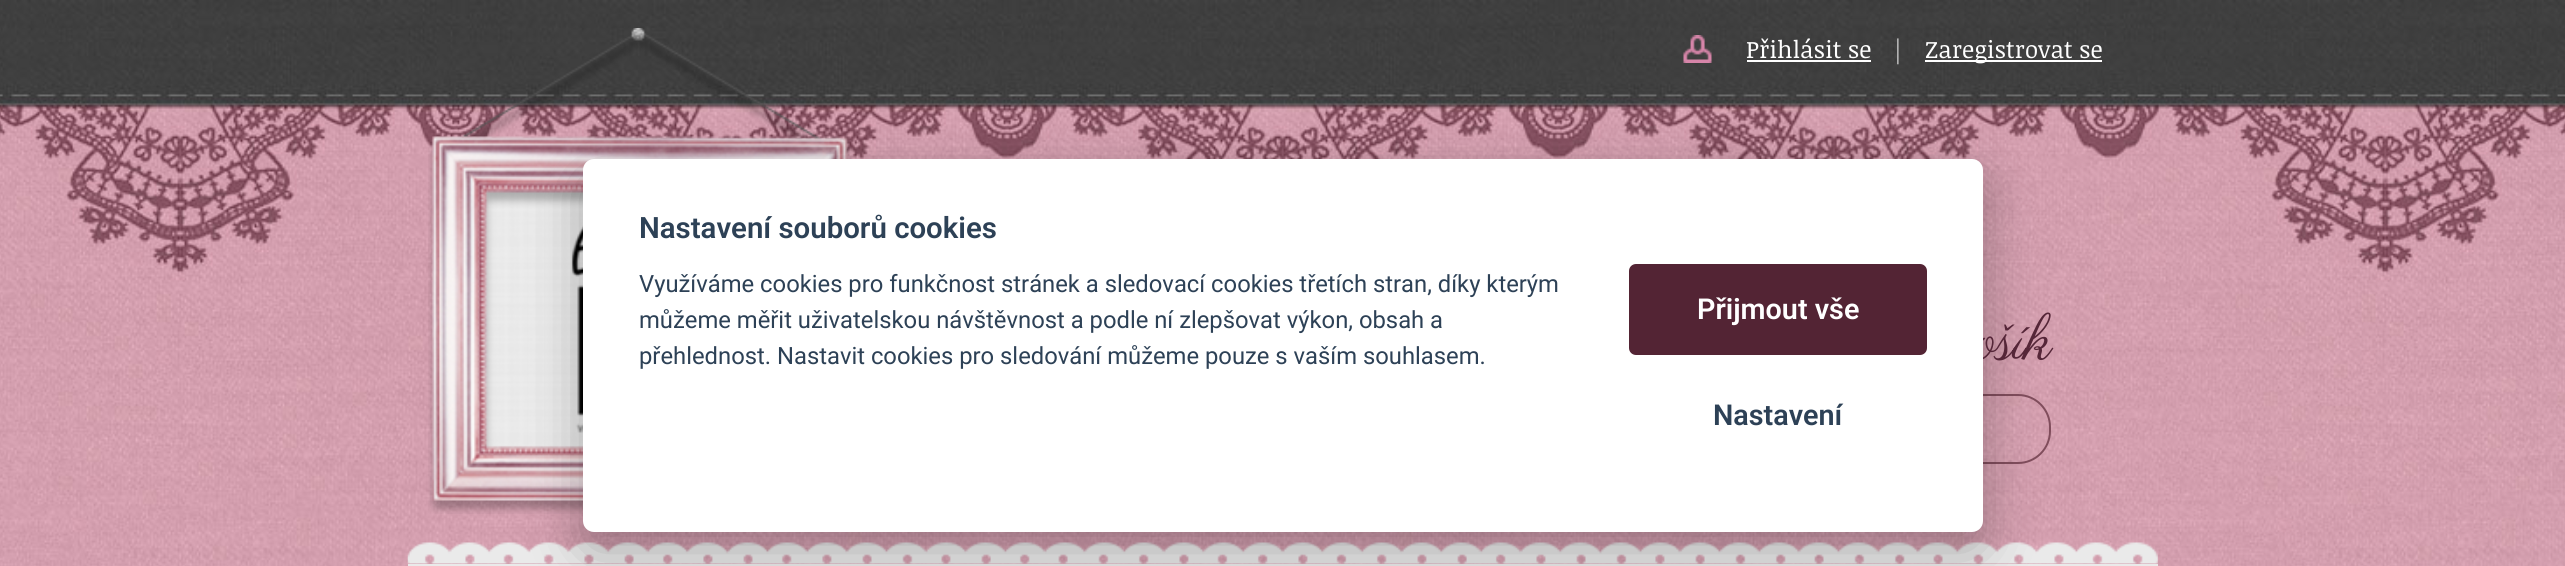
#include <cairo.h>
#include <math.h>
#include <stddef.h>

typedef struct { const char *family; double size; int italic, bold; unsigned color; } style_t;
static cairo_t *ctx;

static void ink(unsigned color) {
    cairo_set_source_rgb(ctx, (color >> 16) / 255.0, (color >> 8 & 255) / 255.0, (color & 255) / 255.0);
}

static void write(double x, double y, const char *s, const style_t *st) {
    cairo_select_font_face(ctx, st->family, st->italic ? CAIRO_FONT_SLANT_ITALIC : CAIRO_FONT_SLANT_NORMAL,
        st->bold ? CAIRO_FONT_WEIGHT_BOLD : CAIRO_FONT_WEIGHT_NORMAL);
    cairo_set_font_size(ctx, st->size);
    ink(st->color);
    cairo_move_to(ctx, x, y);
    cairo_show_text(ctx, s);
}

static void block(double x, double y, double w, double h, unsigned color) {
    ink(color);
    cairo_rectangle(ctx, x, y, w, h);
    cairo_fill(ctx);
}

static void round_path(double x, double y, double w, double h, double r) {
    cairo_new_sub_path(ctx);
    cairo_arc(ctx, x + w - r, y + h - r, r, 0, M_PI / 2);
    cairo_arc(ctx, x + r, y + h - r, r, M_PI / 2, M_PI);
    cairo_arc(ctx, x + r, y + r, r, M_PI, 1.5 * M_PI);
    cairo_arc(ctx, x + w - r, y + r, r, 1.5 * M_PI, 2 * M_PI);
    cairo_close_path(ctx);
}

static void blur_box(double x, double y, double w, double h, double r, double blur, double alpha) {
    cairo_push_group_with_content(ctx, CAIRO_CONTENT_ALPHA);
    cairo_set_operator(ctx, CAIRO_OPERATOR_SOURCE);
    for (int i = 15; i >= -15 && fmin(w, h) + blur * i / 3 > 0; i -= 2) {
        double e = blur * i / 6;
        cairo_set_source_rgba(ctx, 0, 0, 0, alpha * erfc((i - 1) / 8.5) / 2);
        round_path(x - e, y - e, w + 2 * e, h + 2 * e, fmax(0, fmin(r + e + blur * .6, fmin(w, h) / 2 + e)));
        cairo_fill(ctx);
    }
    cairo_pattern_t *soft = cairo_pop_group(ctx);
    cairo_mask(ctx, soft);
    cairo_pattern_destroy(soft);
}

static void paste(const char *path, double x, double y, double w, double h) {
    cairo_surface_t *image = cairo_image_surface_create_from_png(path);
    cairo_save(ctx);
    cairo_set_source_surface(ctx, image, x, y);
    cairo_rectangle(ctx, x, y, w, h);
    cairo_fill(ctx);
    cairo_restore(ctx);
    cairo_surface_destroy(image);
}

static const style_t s1 = {"Parisienne", 63, 0, 0, 0x552638};
static const style_t s2 = {"Roboto SemiBold", 29.4, 0, 0, 0x2d4156};
static const style_t s3 = {"Roboto", 23.8, 0, 0, 0x2d4156};
static const style_t s4 = {"Roboto SemiBold", 28.75, 0, 0, 0xffffff};
static const style_t s5 = {"Roboto SemiBold", 28.75, 0, 0, 0x2d4156};
static const style_t s6 = {"Noticia Text", 24, 0, 0, 0xffffff};
static const style_t s7 = {"Noticia Text", 24, 0, 0, 0xc9c9c9};

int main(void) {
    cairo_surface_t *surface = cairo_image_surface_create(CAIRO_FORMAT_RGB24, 2565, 566);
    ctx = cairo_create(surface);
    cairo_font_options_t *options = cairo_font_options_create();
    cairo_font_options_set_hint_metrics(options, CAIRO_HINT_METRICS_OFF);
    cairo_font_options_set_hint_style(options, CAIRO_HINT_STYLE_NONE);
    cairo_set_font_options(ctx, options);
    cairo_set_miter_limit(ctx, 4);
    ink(0xffffff);
    cairo_paint(ctx);
    paste("pic1.png", 0, 0, 2565, 566);
    paste("pic2.png", 428, 28, 424, 486);
    round_path(1716, 395, 334, 68, 32);
    ink(0x804d5c);
    cairo_stroke(ctx);
    block(408, 564, 1750, 2, 0xeaeaea);
    paste("pic4.png", 407, 542, 1751, 22);
    ink(0x020203);
    blur_box(583, 177, 1400, 373, 11, 26, 0.28);
    write(1974, 359, "ošík", &s1);
    ink(0xffffff);
    round_path(583, 159, 1400, 373, 11);
    cairo_fill(ctx);
    write(639, 238, "Nastavení souborů cookies", &s2);
    write(639, 292, "Využíváme cookies pro funkčnost stránek a sledovací cookies třetích stran, díky kterým", &s3);
    write(639, 328, "můžeme měřit uživatelskou návštěvnost a podle ní zlepšovat výkon, obsah a", &s3);
    write(639, 364, "přehlednost. Nastavit cookies pro sledování můžeme pouze s vaším souhlasem.", &s3);
    ink(0x532434);
    round_path(1629, 264, 298, 91, 7);
    cairo_fill(ctx);
    write(1697, 319, "Přijmout vše", &s4);
    write(1713, 425, "Nastavení", &s5);
    paste("pic3.png", 1683, 35, 29, 28);
    write(1746, 58, "Přihlásit se", &s6);
    block(1747, 60, 124, 2, 0xffffff);
    write(1894, 58, "|", &s7);
    block(1925, 60, 177, 2, 0xffffff);
    write(1925, 58, "Zaregistrovat se", &s6);
    cairo_surface_write_to_png(surface, "screenshot.png");
    cairo_font_options_destroy(options);
    cairo_destroy(ctx);
    cairo_surface_destroy(surface);
    return 0;
}
